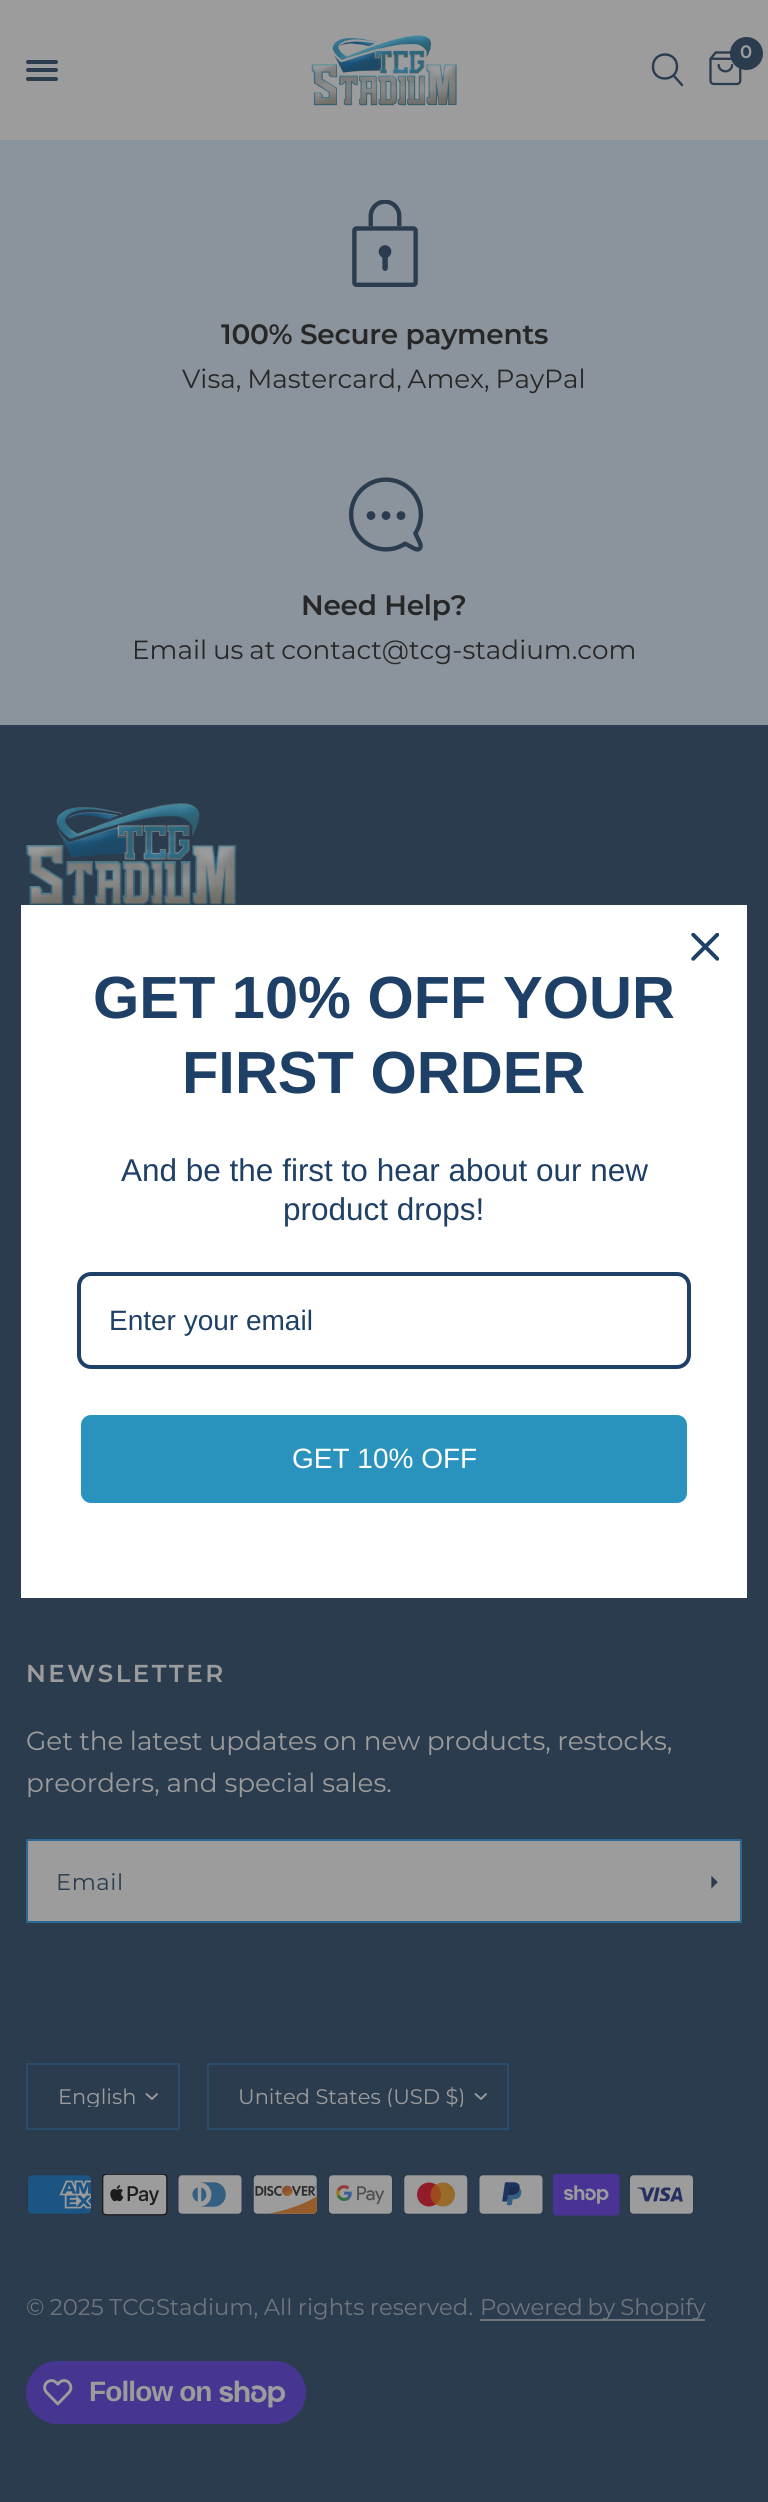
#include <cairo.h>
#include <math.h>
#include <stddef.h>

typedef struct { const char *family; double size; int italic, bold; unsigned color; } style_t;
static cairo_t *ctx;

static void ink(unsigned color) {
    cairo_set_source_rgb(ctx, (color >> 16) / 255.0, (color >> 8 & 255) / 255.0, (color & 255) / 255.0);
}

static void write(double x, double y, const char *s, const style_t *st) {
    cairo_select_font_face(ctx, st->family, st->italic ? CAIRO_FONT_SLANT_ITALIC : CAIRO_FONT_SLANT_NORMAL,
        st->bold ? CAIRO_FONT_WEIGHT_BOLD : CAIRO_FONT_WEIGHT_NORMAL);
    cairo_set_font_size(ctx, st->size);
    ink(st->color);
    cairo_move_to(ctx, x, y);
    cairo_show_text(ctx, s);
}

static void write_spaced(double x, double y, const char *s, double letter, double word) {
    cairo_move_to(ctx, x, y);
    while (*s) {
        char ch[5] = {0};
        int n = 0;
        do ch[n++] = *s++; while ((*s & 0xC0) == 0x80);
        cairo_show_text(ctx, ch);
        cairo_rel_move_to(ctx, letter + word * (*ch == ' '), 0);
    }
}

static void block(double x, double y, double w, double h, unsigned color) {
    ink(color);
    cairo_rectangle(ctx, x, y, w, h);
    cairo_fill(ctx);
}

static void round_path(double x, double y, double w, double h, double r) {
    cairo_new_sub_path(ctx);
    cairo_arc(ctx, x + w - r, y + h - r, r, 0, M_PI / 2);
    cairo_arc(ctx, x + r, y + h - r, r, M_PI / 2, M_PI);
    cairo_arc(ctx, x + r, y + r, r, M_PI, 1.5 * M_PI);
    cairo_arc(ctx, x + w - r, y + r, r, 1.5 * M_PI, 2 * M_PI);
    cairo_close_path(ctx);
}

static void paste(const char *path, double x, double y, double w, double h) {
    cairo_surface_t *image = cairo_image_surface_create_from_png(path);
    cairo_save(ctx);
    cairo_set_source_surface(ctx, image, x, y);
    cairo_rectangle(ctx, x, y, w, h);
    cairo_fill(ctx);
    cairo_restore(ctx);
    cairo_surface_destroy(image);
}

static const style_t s1 = {"Montserrat SemiBold", 18, 0, 0, 0x9c9c9c};
static const style_t s2 = {"Montserrat", 26.25, 0, 0, 0x9c9c9c};
static const style_t s3 = {"Montserrat", 21, 0, 0, 0x9c9c9c};
static const style_t s4 = {"Liberation Sans", 59.5, 0, 1, 0x1e4066};
static const style_t s5 = {"Liberation Sans", 31.5, 0, 0, 0x1e4066};
static const style_t s6 = {"Liberation Sans", 28, 0, 0, 0x1e4066};
static const style_t s7 = {"Liberation Sans", 28, 0, 0, 0xffffff};

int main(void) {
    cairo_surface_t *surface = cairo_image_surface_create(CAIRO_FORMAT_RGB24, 768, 2502);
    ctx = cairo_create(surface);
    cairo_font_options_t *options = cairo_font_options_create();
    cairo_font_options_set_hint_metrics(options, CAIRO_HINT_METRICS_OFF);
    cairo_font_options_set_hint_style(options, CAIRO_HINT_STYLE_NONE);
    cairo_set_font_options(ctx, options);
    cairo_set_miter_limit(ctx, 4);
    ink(0x8b939c);
    cairo_paint(ctx);
    block(0, 0, 768, 140, 0x9c9c9c);
    paste("pic1.png", 311, 35, 146, 71);
    cairo_new_path(ctx);
    cairo_move_to(ctx, 674, 76);
    cairo_line_to(ctx, 682, 85);
    cairo_move_to(ctx, 677, 66.5);
    cairo_curve_to(ctx, 677, 82.5, 652.5, 82.5, 653, 66.5);
    cairo_curve_to(ctx, 653, 50.5, 677, 50.5, 677, 66.5);
    cairo_close_path(ctx);
    ink(0x2b3c4f);
    cairo_set_line_width(ctx, 2.4);
    cairo_set_line_cap(ctx, CAIRO_LINE_CAP_ROUND);
    cairo_set_line_join(ctx, CAIRO_LINE_JOIN_ROUND);
    cairo_stroke(ctx);
    paste("pic2.png", 709, 51, 33, 35);
    cairo_arc(ctx, 746.5, 53.5, 16.5, 0, 2 * M_PI);
    cairo_fill(ctx);
    write(740, 58, "0", &s1);
    ink(0x2b3c4f);
    round_path(26, 60, 32, 4, 2);
    cairo_fill(ctx);
    round_path(26, 68, 32, 4, 2);
    cairo_fill(ctx);
    round_path(26, 77, 32, 4, 2);
    cairo_fill(ctx);
    paste("pic3.png", 352, 200, 66, 87);
    cairo_set_font_size(ctx, 28);
    ink(0x272727);
    write_spaced(221, 344, "100% Secure payments", -0.25, 0);
    cairo_select_font_face(ctx, "Montserrat", CAIRO_FONT_SLANT_NORMAL, CAIRO_FONT_WEIGHT_NORMAL);
    cairo_set_font_size(ctx, 26.25);
    write_spaced(182, 388, "Visa, Mastercard, Amex, PayPal", 0, -1);
    paste("pic4.png", 348, 477, 76, 75);
    cairo_select_font_face(ctx, "Montserrat SemiBold", CAIRO_FONT_SLANT_NORMAL, CAIRO_FONT_WEIGHT_NORMAL);
    cairo_set_font_size(ctx, 28);
    write_spaced(301, 615, "Need Help?", -0.25, 0);
    cairo_select_font_face(ctx, "Montserrat", CAIRO_FONT_SLANT_NORMAL, CAIRO_FONT_WEIGHT_NORMAL);
    cairo_set_font_size(ctx, 26.25);
    write_spaced(132, 659, "Email us at contact@tcg-stadium.com", 0, -1);
    block(0, 725, 768, 1777, 0x2b3c4f);
    paste("pic5.png", 26, 803, 211, 102);
    cairo_select_font_face(ctx, "Montserrat SemiBold", CAIRO_FONT_SLANT_NORMAL, CAIRO_FONT_WEIGHT_NORMAL);
    cairo_set_font_size(ctx, 24.5);
    ink(0x9c9c9c);
    write_spaced(26, 1682, "NEWSLETTER", 2.5, 0);
    cairo_select_font_face(ctx, "Montserrat", CAIRO_FONT_SLANT_NORMAL, CAIRO_FONT_WEIGHT_NORMAL);
    cairo_set_font_size(ctx, 26.25);
    write_spaced(26, 1750, "Get the latest updates on new products, restocks,", 0, -0.5);
    write(26, 1792, "preorders, and special sales.", &s2);
    cairo_rectangle(ctx, 27, 1840, 714, 82);
    cairo_fill_preserve(ctx);
    ink(0x2a6896);
    cairo_set_line_width(ctx, 2);
    cairo_set_line_cap(ctx, CAIRO_LINE_CAP_BUTT);
    cairo_set_line_join(ctx, CAIRO_LINE_JOIN_MITER);
    cairo_stroke(ctx);
    cairo_set_font_size(ctx, 22.75);
    ink(0x2b3c4f);
    write_spaced(56, 1890, "Email", 0.5, 0);
    paste("pic6.png", 711, 1875, 7, 14);
    cairo_rectangle(ctx, 27, 2064, 152, 65);
    ink(0x2b4d6b);
    cairo_stroke(ctx);
    cairo_save(ctx);
    cairo_rectangle(ctx, 58, 2086, 79, 21);
    cairo_clip(ctx);
    write(58, 2104, "English", &s3);
    cairo_restore(ctx);
    cairo_new_path(ctx);
    cairo_move_to(ctx, 157, 2094);
    cairo_line_to(ctx, 152, 2099);
    cairo_line_to(ctx, 146.5, 2094);
    ink(0x9c9c9c);
    cairo_set_line_width(ctx, 1.9);
    cairo_set_line_cap(ctx, CAIRO_LINE_CAP_ROUND);
    cairo_set_line_join(ctx, CAIRO_LINE_JOIN_ROUND);
    cairo_stroke(ctx);
    cairo_rectangle(ctx, 208, 2064, 300, 65);
    ink(0x2b4d6b);
    cairo_set_line_width(ctx, 2);
    cairo_set_line_cap(ctx, CAIRO_LINE_CAP_BUTT);
    cairo_set_line_join(ctx, CAIRO_LINE_JOIN_MITER);
    cairo_stroke(ctx);
    cairo_save(ctx);
    cairo_rectangle(ctx, 238, 2086, 228, 21);
    cairo_clip(ctx);
    write(238, 2104, "United States (USD $)", &s3);
    cairo_restore(ctx);
    cairo_new_path(ctx);
    cairo_move_to(ctx, 486, 2094);
    cairo_line_to(ctx, 481, 2099);
    cairo_line_to(ctx, 475.5, 2094);
    ink(0x9c9c9c);
    cairo_set_line_width(ctx, 1.9);
    cairo_set_line_cap(ctx, CAIRO_LINE_CAP_ROUND);
    cairo_set_line_join(ctx, CAIRO_LINE_JOIN_ROUND);
    cairo_stroke(ctx);
    paste("pic7.png", 26, 2174, 67, 41);
    paste("pic8.png", 102, 2174, 66, 42);
    paste("pic9.png", 177, 2174, 66, 41);
    paste("pic10.png", 252, 2174, 66, 41);
    paste("pic11.png", 327, 2174, 67, 41);
    paste("pic12.png", 403, 2174, 66, 41);
    paste("pic13.png", 478, 2174, 66, 41);
    paste("pic14.png", 553, 2174, 67, 42);
    paste("pic15.png", 628, 2174, 67, 41);
    ink(0x6f757d);
    write_spaced(26, 2315, "© 2025 TCGStadium, All rights reserved.", 0, -0.5);
    block(480, 2319, 225, 2, 0x6f757d);
    write_spaced(480, 2315, "Powered by Shopify", 0, -1);
    ink(0x463692);
    round_path(26, 2361, 280, 63, 31.5);
    cairo_fill(ctx);
    paste("pic16.png", 43, 2379, 30, 27);
    cairo_select_font_face(ctx, "Liberation Sans", CAIRO_FONT_SLANT_NORMAL, CAIRO_FONT_WEIGHT_BOLD);
    cairo_set_font_size(ctx, 28);
    ink(0x9c9c9c);
    write_spaced(89, 2401, "Follow on", -0.9, 0);
    paste("pic17.png", 219, 2380, 66, 28);
    block(21, 905, 726, 693, 0xffffff);
    paste("pic18.png", 691, 933, 28, 28);
    write(93, 1018, "GET 10% OFF YOUR", &s4);
    write(182, 1093, "FIRST ORDER", &s4);
    write(121, 1181, "And be the first to hear about our new", &s5);
    write(283, 1220, "product drops!", &s5);
    round_path(79, 1274, 610, 93, 12);
    cairo_set_line_width(ctx, 4);
    cairo_set_line_cap(ctx, CAIRO_LINE_CAP_BUTT);
    cairo_set_line_join(ctx, CAIRO_LINE_JOIN_MITER);
    cairo_stroke(ctx);
    write(109, 1330, "Enter your email", &s6);
    ink(0x2993be);
    round_path(79, 1413, 610, 92, 12);
    cairo_fill_preserve(ctx);
    ink(0xffffff);
    cairo_stroke(ctx);
    write(292, 1468, "GET 10% OFF", &s7);
    cairo_surface_write_to_png(surface, "screenshot.png");
    cairo_font_options_destroy(options);
    cairo_destroy(ctx);
    cairo_surface_destroy(surface);
    return 0;
}
